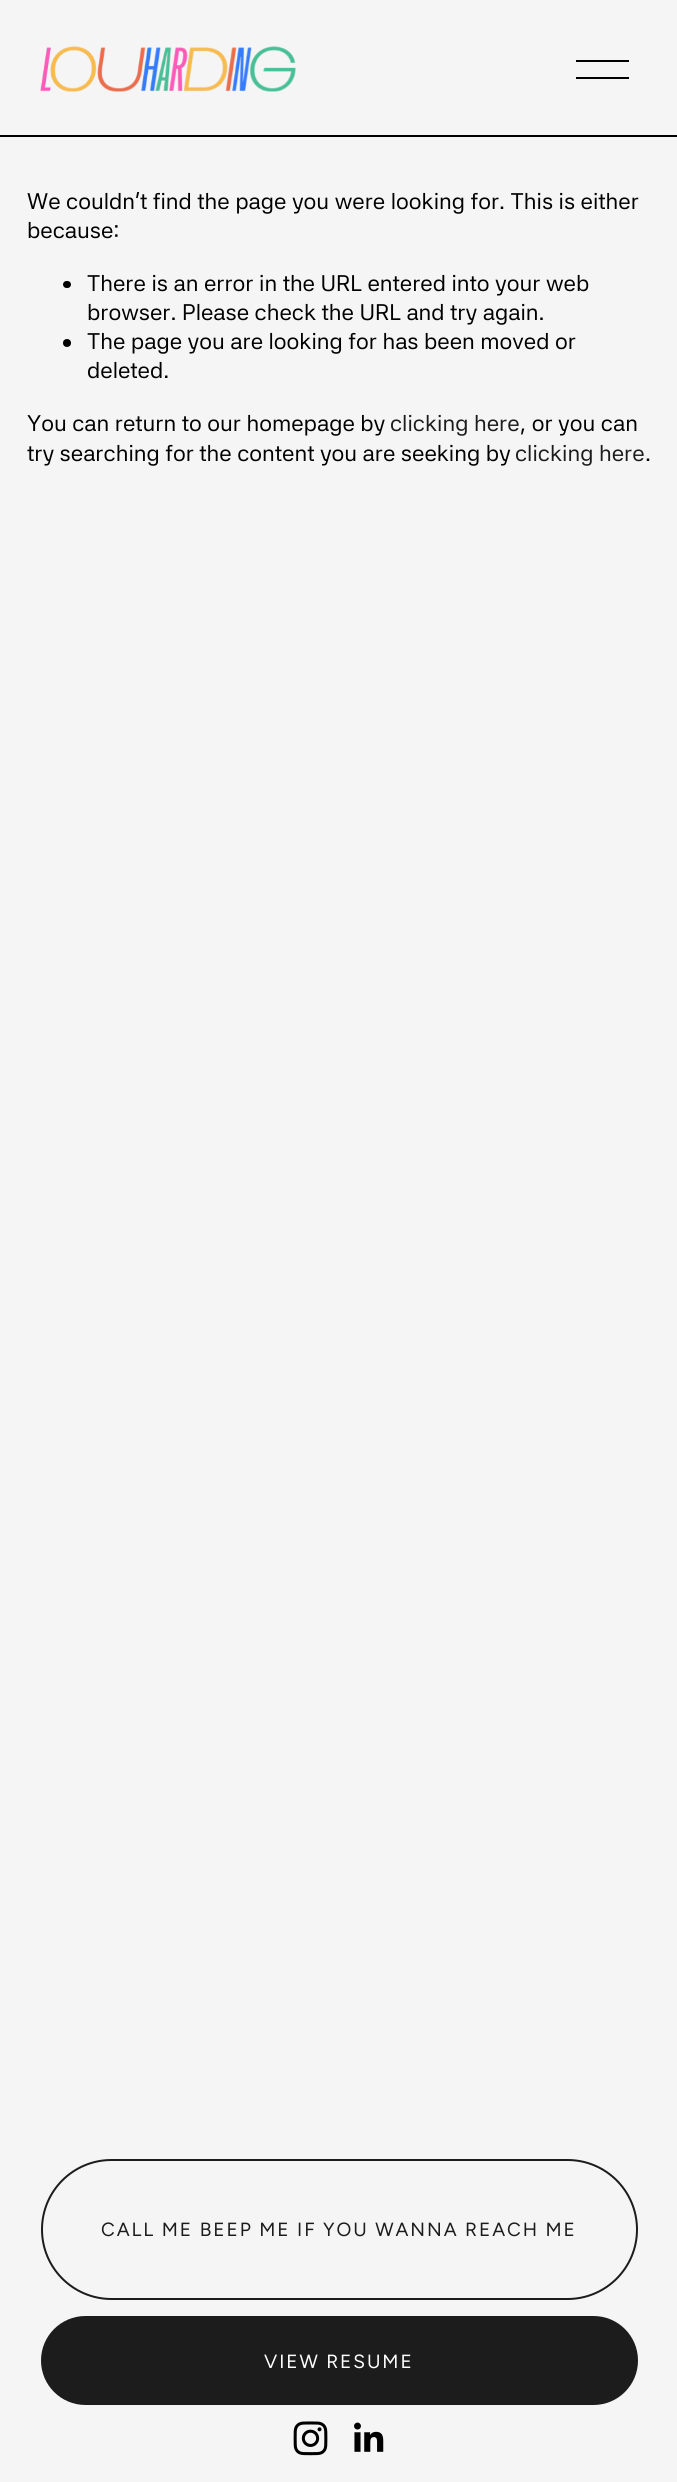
#include <cairo.h>
#include <math.h>
#include <stddef.h>

typedef struct { const char *family; double size; int italic, bold; unsigned color; } style_t;
static cairo_t *ctx;

static void ink(unsigned color) {
    cairo_set_source_rgb(ctx, (color >> 16) / 255.0, (color >> 8 & 255) / 255.0, (color & 255) / 255.0);
}

static void write(double x, double y, const char *s, const style_t *st) {
    cairo_select_font_face(ctx, st->family, st->italic ? CAIRO_FONT_SLANT_ITALIC : CAIRO_FONT_SLANT_NORMAL,
        st->bold ? CAIRO_FONT_WEIGHT_BOLD : CAIRO_FONT_WEIGHT_NORMAL);
    cairo_set_font_size(ctx, st->size);
    ink(st->color);
    cairo_move_to(ctx, x, y);
    cairo_show_text(ctx, s);
}

static void write_spaced(double x, double y, const char *s, double letter, double word) {
    cairo_move_to(ctx, x, y);
    while (*s) {
        char ch[5] = {0};
        int n = 0;
        do ch[n++] = *s++; while ((*s & 0xC0) == 0x80);
        cairo_show_text(ctx, ch);
        cairo_rel_move_to(ctx, letter + word * (*ch == ' '), 0);
    }
}

static void block(double x, double y, double w, double h, unsigned color) {
    ink(color);
    cairo_rectangle(ctx, x, y, w, h);
    cairo_fill(ctx);
}

static void round_path(double x, double y, double w, double h, double r) {
    cairo_new_sub_path(ctx);
    cairo_arc(ctx, x + w - r, y + h - r, r, 0, M_PI / 2);
    cairo_arc(ctx, x + r, y + h - r, r, M_PI / 2, M_PI);
    cairo_arc(ctx, x + r, y + r, r, M_PI, 1.5 * M_PI);
    cairo_arc(ctx, x + w - r, y + r, r, 1.5 * M_PI, 2 * M_PI);
    cairo_close_path(ctx);
}

static void paste(const char *path, double x, double y, double w, double h) {
    cairo_surface_t *image = cairo_image_surface_create_from_png(path);
    cairo_save(ctx);
    cairo_set_source_surface(ctx, image, x, y);
    cairo_rectangle(ctx, x, y, w, h);
    cairo_fill(ctx);
    cairo_restore(ctx);
    cairo_surface_destroy(image);
}

static const style_t s1 = {"Asta Sans", 22.4, 0, 0, 0x000000};
static const style_t s2 = {"Asta Sans", 22.4, 0, 0, 0x1c1c1c};

int main(void) {
    cairo_surface_t *surface = cairo_image_surface_create(CAIRO_FORMAT_RGB24, 677, 2482);
    ctx = cairo_create(surface);
    cairo_font_options_t *options = cairo_font_options_create();
    cairo_font_options_set_hint_metrics(options, CAIRO_HINT_METRICS_OFF);
    cairo_font_options_set_hint_style(options, CAIRO_HINT_STYLE_NONE);
    cairo_set_font_options(ctx, options);
    cairo_set_miter_limit(ctx, 4);
    ink(0xf5f5f5);
    cairo_paint(ctx);
    paste("pic1.png", 40, 46, 256, 46);
    block(576, 60, 53, 2, 0x000000);
    block(576, 77, 53, 2, 0x000000);
    block(0, 135, 677, 2, 0x000000);
    write(27, 209, "We couldn't find the page you were looking for. This is either", &s1);
    write(27, 238, "because:", &s1);
    round_path(63, 281, 8, 7, 3.5);
    cairo_fill(ctx);
    write(87, 291, "There is an error in the URL entered into your web", &s1);
    write(87, 320, "browser. Please check the URL and try again.", &s1);
    cairo_new_path(ctx);
    cairo_arc(ctx, 67, 343, 4, 0, 2 * M_PI);
    cairo_fill(ctx);
    write(87, 349, "The page you are looking for has been moved or", &s1);
    write(87, 378, "deleted.", &s1);
    write(27, 431, "You can return to our homepage by", &s1);
    write(390, 431, "clicking here", &s2);
    write(520, 431, ", or you can", &s1);
    write(27, 461, "try searching for the content you are seeking by", &s1);
    write(515, 461, "clicking here", &s2);
    write(645, 461, ".", &s1);
    round_path(42, 2160, 595, 139, 69.5);
    ink(0x1c1c1c);
    cairo_stroke(ctx);
    cairo_select_font_face(ctx, "Figtree", CAIRO_FONT_SLANT_NORMAL, CAIRO_FONT_WEIGHT_NORMAL);
    cairo_set_font_size(ctx, 19.1);
    write_spaced(101, 2236, "CALL ME BEEP ME IF YOU WANNA REACH ME", 1.9, 0);
    round_path(41, 2316, 597, 89, 44.5);
    cairo_fill(ctx);
    ink(0xffffff);
    write_spaced(264, 2368, "VIEW RESUME", 1.9, 0);
    paste("pic2.png", 293, 2421, 35, 35);
    paste("pic3.png", 354, 2422, 30, 30);
    cairo_surface_write_to_png(surface, "screenshot.png");
    cairo_font_options_destroy(options);
    cairo_destroy(ctx);
    cairo_surface_destroy(surface);
    return 0;
}
